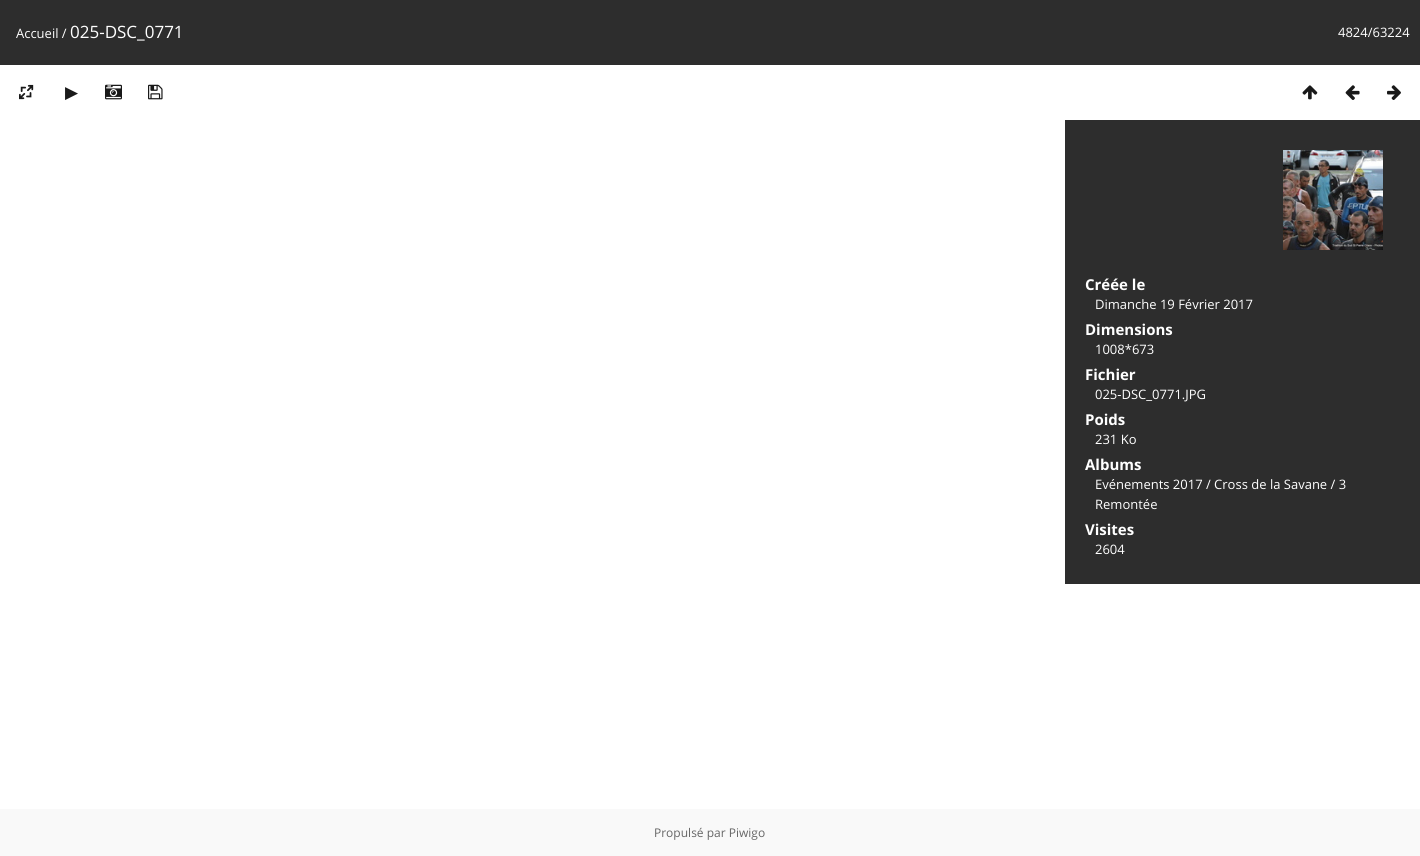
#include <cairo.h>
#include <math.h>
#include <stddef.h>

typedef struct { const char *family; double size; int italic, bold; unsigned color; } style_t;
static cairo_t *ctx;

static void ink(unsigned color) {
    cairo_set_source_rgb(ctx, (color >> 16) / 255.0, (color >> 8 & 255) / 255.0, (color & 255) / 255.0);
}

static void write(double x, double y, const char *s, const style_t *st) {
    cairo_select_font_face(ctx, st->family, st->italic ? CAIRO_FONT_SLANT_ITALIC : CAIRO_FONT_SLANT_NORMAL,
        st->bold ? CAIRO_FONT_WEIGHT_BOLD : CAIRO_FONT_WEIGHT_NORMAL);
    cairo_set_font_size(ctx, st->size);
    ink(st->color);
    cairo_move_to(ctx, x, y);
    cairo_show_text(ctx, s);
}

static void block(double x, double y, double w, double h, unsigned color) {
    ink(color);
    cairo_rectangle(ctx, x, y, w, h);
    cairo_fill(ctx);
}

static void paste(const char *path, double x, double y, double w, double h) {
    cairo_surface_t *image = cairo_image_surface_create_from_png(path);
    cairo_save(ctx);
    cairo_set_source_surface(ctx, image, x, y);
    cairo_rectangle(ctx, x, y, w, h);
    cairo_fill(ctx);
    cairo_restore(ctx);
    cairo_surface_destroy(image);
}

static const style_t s1 = {"Open Sans", 13, 0, 0, 0xffffff};
static const style_t s2 = {"Open Sans", 17, 0, 0, 0xffffff};
static const style_t s3 = {"DejaVu Sans", 17, 0, 0, 0x1a1a1a};
static const style_t s4 = {"Open Sans", 15, 0, 1, 0xffffff};
static const style_t s5 = {"Open Sans", 12, 0, 0, 0x666666};

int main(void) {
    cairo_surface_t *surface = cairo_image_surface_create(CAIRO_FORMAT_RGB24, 1420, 856);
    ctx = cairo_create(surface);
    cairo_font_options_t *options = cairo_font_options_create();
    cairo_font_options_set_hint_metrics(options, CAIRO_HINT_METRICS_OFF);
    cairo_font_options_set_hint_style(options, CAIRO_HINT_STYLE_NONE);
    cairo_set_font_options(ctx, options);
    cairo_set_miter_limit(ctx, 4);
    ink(0xffffff);
    cairo_paint(ctx);
    block(0, 0, 1420, 65, 0x2d2d2d);
    write(16, 38, "Accueil /", &s1);
    write(70, 38, "025-DSC_0771", &s2);
    write(1338, 37, "4824/63224", &s1);
    paste("pic1.png", 19, 84, 15, 16);
    write(65, 98, "▶", &s3);
    paste("pic2.png", 105, 84, 17, 16);
    paste("pic3.png", 148, 84, 15, 16);
    paste("pic4.png", 1302, 85, 16, 15);
    paste("pic5.png", 1345, 85, 15, 15);
    paste("pic6.png", 1387, 85, 14, 15);
    block(1065, 120, 355, 464, 0x2d2d2d);
    paste("pic7.png", 1283, 150, 100, 100);
    write(1085, 290, "Créée le", &s4);
    write(1095, 309, "Dimanche 19 Février 2017", &s1);
    write(1085, 335, "Dimensions", &s4);
    write(1095, 354, "1008*673", &s1);
    write(1085, 380, "Fichier", &s4);
    write(1095, 399, "025-DSC_0771.JPG", &s1);
    write(1085, 425, "Poids", &s4);
    write(1095, 444, "231 Ko", &s1);
    write(1085, 470, "Albums", &s4);
    write(1095, 489, "Evénements 2017 / Cross de la Savane / 3", &s1);
    write(1095, 509, "Remontée", &s1);
    write(1085, 535, "Visites", &s4);
    write(1095, 554, "2604", &s1);
    block(0, 809, 1420, 47, 0xf9f9f9);
    write(654, 837, "Propulsé par Piwigo", &s5);
    cairo_surface_write_to_png(surface, "screenshot.png");
    cairo_font_options_destroy(options);
    cairo_destroy(ctx);
    cairo_surface_destroy(surface);
    return 0;
}
